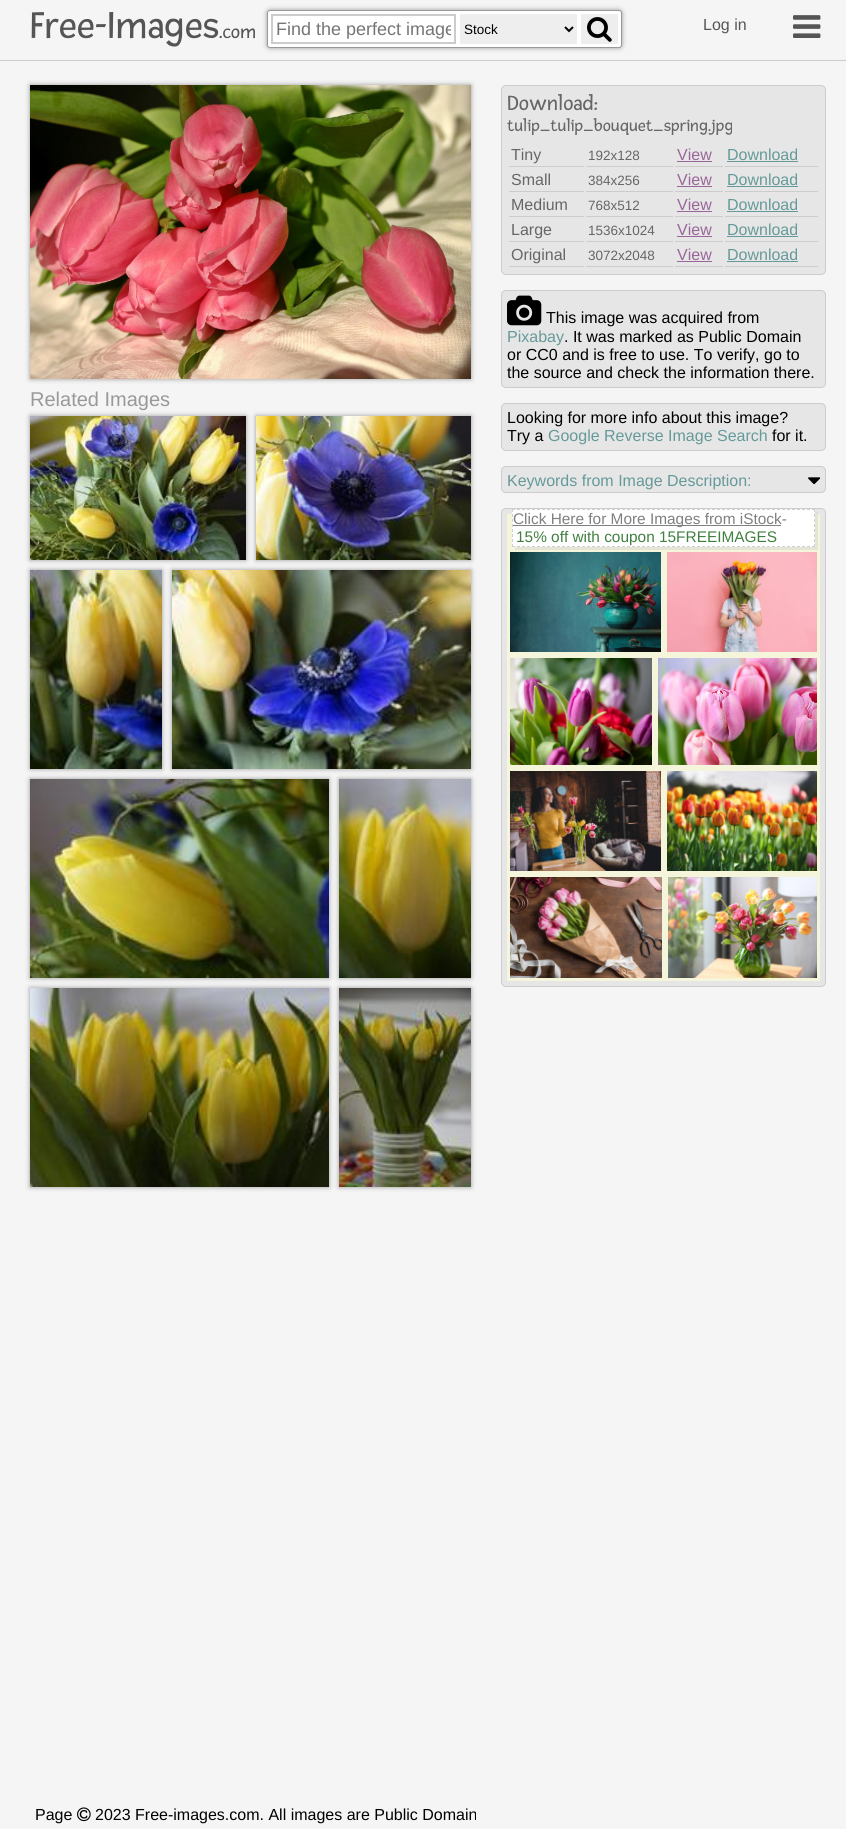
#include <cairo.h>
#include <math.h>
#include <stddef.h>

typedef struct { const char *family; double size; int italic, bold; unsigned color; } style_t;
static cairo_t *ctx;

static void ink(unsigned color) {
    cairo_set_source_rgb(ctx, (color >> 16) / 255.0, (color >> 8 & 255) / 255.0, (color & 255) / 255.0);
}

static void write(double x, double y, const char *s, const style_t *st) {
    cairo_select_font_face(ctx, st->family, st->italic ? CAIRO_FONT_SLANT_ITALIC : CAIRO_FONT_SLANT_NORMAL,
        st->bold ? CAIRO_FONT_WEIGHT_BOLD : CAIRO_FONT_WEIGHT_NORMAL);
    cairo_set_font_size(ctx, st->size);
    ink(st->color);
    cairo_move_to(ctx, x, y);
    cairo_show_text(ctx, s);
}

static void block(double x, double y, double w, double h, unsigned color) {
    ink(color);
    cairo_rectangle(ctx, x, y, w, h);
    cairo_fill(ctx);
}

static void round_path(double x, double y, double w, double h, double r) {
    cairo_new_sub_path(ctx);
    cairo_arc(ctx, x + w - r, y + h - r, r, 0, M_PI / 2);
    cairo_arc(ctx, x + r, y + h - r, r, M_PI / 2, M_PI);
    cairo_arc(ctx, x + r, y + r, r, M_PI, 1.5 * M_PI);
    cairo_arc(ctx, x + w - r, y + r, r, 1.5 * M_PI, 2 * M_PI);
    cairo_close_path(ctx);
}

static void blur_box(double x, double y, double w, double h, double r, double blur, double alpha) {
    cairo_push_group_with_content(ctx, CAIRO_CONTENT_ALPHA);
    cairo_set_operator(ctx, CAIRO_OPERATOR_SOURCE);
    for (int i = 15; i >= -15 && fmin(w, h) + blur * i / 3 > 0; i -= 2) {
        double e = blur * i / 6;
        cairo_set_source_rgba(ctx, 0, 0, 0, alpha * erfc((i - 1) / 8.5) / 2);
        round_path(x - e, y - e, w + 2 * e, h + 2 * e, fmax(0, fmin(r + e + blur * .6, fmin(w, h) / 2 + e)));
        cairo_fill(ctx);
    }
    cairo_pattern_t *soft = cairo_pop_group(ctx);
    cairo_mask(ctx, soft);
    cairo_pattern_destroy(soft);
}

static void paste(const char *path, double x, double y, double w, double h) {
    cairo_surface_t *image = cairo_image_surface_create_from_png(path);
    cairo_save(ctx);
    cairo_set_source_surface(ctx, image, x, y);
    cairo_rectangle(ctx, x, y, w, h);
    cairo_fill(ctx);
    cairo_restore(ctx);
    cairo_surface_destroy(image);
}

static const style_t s1 = {"Fresca", 40, 0, 0, 0x555555};
static const style_t s2 = {"Fresca", 20, 0, 0, 0x555555};
static const style_t s3 = {"Liberation Sans", 18, 0, 0, 0x757575};
static const style_t s4 = {"Liberation Sans", 13.5, 0, 0, 0x000000};
static const style_t s5 = {"Liberation Sans", 16, 0, 0, 0x555555};
static const style_t s6 = {"Liberation Sans", 20, 0, 0, 0x999999};
static const style_t s7 = {"Fresca", 22, 0, 0, 0x666666};
static const style_t s8 = {"Fresca", 17.6, 0, 0, 0x666666};
static const style_t s9 = {"Liberation Sans", 16, 0, 0, 0x666666};
static const style_t s10 = {"Liberation Sans", 13.5, 0, 0, 0x666666};
static const style_t s11 = {"Liberation Sans", 16, 0, 0, 0x996699};
static const style_t s12 = {"Liberation Sans", 16, 0, 0, 0x669999};
static const style_t s13 = {"Liberation Sans", 16, 0, 0, 0x000000};
static const style_t s14 = {"Liberation Sans", 15.4, 0, 0, 0x808080};
static const style_t s15 = {"Liberation Sans", 15.4, 0, 0, 0x408040};

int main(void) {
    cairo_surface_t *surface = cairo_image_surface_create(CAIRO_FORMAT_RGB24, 846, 1829);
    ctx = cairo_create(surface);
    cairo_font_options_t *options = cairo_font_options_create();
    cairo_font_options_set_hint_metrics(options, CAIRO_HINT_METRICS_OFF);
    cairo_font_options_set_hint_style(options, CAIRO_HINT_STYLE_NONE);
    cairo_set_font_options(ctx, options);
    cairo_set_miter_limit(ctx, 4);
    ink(0xf5f5f5);
    cairo_paint(ctx);
    block(0, 60, 846, 1, 0xcccccc);
    write(30, 38, "Free-Images", &s1);
    write(219, 38, ".com", &s2);
    ink(0x999999);
    blur_box(267, 10, 355, 38, 3, 2.5, 1);
    ink(0xffffff);
    round_path(267.5, 10.5, 354, 37, 2.5);
    cairo_fill_preserve(ctx);
    ink(0x999999);
    cairo_set_line_width(ctx, 1);
    cairo_stroke(ctx);
    cairo_rectangle(ctx, 272, 15, 183, 28);
    ink(0xcccccc);
    cairo_set_line_width(ctx, 2);
    cairo_stroke(ctx);
    cairo_save(ctx);
    cairo_rectangle(ctx, 276, 19, 175, 21);
    cairo_clip(ctx);
    write(276, 35, "Find the perfect image", &s3);
    cairo_restore(ctx);
    block(460, 14, 117, 30, 0xeeeeee);
    cairo_new_path(ctx);
    cairo_move_to(ctx, 565, 27);
    cairo_line_to(ctx, 569, 31);
    cairo_line_to(ctx, 573, 27);
    ink(0x000000);
    cairo_stroke(ctx);
    write(464, 34, "Stock", &s4);
    block(581, 14, 37, 30, 0xeeeeee);
    paste("pic1.png", 587, 17, 25, 25);
    write(703, 30, "Log in", &s5);
    paste("pic2.png", 793, 15, 28, 23);
    ink(0x999999);
    blur_box(30, 85, 441, 294, 0, 2.5, 1);
    paste("pic3.png", 30, 85, 441, 294);
    write(30, 406, "Related Images", &s6);
    ink(0x999999);
    blur_box(30, 416, 216, 144, 0, 2.5, 1);
    paste("pic4.png", 30, 416, 216, 144);
    blur_box(256, 416, 215, 144, 0, 2.5, 1);
    paste("pic5.png", 256, 416, 215, 144);
    blur_box(30, 570, 132, 199, 0, 2.5, 1);
    paste("pic6.png", 30, 570, 132, 199);
    blur_box(172, 570, 299, 199, 0, 2.5, 1);
    paste("pic7.png", 172, 570, 299, 199);
    blur_box(30, 779, 299, 199, 0, 2.5, 1);
    paste("pic8.png", 30, 779, 299, 199);
    blur_box(339, 779, 132, 199, 0, 2.5, 1);
    paste("pic9.png", 339, 779, 132, 199);
    blur_box(30, 988, 299, 199, 0, 2.5, 1);
    paste("pic10.png", 30, 988, 299, 199);
    blur_box(339, 988, 132, 199, 0, 2.5, 1);
    paste("pic11.png", 339, 988, 132, 199);
    ink(0xe6e6e6);
    round_path(501.5, 85.5, 324, 189, 4.5);
    cairo_fill_preserve(ctx);
    ink(0xcccccc);
    cairo_set_line_width(ctx, 1);
    cairo_stroke(ctx);
    write(507, 110, "Download:", &s7);
    write(507, 131, "tulip_tulip_bouquet_spring.jpg", &s8);
    block(509, 166, 75, 1, 0xcccccc);
    write(511, 160, "Tiny", &s9);
    block(586, 166, 87, 1, 0xcccccc);
    write(588, 160, "192x128", &s10);
    block(675, 166, 48, 1, 0xcccccc);
    write(677, 160, "View", &s11);
    block(677, 161, 35, 1, 0x996699);
    block(725, 166, 93, 1, 0xcccccc);
    write(727, 160, "Download", &s12);
    block(727, 161, 71, 1, 0x669999);
    block(509, 191, 75, 1, 0xcccccc);
    write(511, 185, "Small", &s9);
    block(586, 191, 87, 1, 0xcccccc);
    write(588, 185, "384x256", &s10);
    block(675, 191, 48, 1, 0xcccccc);
    write(677, 185, "View", &s11);
    block(677, 186, 35, 1, 0x996699);
    block(725, 191, 93, 1, 0xcccccc);
    write(727, 185, "Download", &s12);
    block(727, 186, 71, 1, 0x669999);
    block(509, 216, 75, 1, 0xcccccc);
    write(511, 210, "Medium", &s9);
    block(586, 216, 87, 1, 0xcccccc);
    write(588, 210, "768x512", &s10);
    block(675, 216, 48, 1, 0xcccccc);
    write(677, 210, "View", &s11);
    block(677, 211, 35, 1, 0x996699);
    block(725, 216, 93, 1, 0xcccccc);
    write(727, 210, "Download", &s12);
    block(727, 211, 71, 1, 0x669999);
    block(509, 241, 75, 1, 0xcccccc);
    write(511, 235, "Large", &s9);
    block(586, 241, 87, 1, 0xcccccc);
    write(588, 235, "1536x1024", &s10);
    block(675, 241, 48, 1, 0xcccccc);
    write(677, 235, "View", &s11);
    block(677, 236, 35, 1, 0x996699);
    block(725, 241, 93, 1, 0xcccccc);
    write(727, 235, "Download", &s12);
    block(727, 236, 71, 1, 0x669999);
    block(509, 266, 75, 1, 0xcccccc);
    write(511, 260, "Original", &s9);
    block(586, 266, 87, 1, 0xcccccc);
    write(588, 260, "3072x2048", &s10);
    block(675, 266, 48, 1, 0xcccccc);
    write(677, 260, "View", &s11);
    block(677, 261, 35, 1, 0x996699);
    block(725, 266, 93, 1, 0xcccccc);
    write(727, 260, "Download", &s12);
    block(727, 261, 71, 1, 0x669999);
    ink(0xe6e6e6);
    round_path(501.5, 290.5, 324, 97, 4.5);
    cairo_fill_preserve(ctx);
    ink(0xcccccc);
    cairo_stroke(ctx);
    paste("pic12.png", 507, 295, 35, 31);
    write(546, 323, "This image was acquired from", &s13);
    write(507, 342, "Pixabay", &s12);
    write(564, 342, ". It was marked as Public Domain", &s13);
    write(507, 360, "or CC0 and is free to use. To verify, go to", &s13);
    write(507, 378, "the source and check the information there.", &s13);
    ink(0xe6e6e6);
    round_path(501.5, 403.5, 324, 47, 4.5);
    cairo_fill_preserve(ctx);
    ink(0xcccccc);
    cairo_stroke(ctx);
    write(507, 423, "Looking for more info about this image?", &s13);
    write(507, 441, "Try a", &s13);
    write(548, 441, "Google Reverse Image Search", &s12);
    write(772, 441, "for it.", &s13);
    ink(0xe6e6e6);
    round_path(501.5, 466.5, 324, 26, 4.5);
    cairo_fill_preserve(ctx);
    ink(0xcccccc);
    cairo_stroke(ctx);
    write(507, 486, "Keywords from Image Description:", &s12);
    paste("pic13.png", 808, 477, 13, 8);
    ink(0xe6e6e6);
    round_path(501.5, 508.5, 324, 478, 4.5);
    cairo_fill_preserve(ctx);
    ink(0xcccccc);
    cairo_stroke(ctx);
    block(507, 514, 313, 467, 0xf5f5dc);
    cairo_set_source_rgba(ctx, 0.8, 0.8, 0.8, 0.38);
    cairo_new_path(ctx);
    cairo_move_to(ctx, 515, 547);
    cairo_line_to(ctx, 515, 550);
    cairo_line_to(ctx, 818, 550);
    cairo_line_to(ctx, 818, 512);
    cairo_line_to(ctx, 815, 512);
    cairo_line_to(ctx, 815, 547);
    cairo_close_path(ctx);
    cairo_fill(ctx);
    block(512, 509, 303, 38, 0xffffff);
    cairo_new_path(ctx);
    cairo_move_to(ctx, 512, 509.5);
    cairo_line_to(ctx, 815, 509.5);
    ink(0xd0d0d0);
    cairo_set_dash(ctx, (double[]){3, 2}, 2, 0);
    cairo_stroke(ctx);
    cairo_new_path(ctx);
    cairo_move_to(ctx, 814.5, 509);
    cairo_line_to(ctx, 814.5, 547);
    cairo_stroke(ctx);
    cairo_new_path(ctx);
    cairo_move_to(ctx, 512, 546.5);
    cairo_line_to(ctx, 815, 546.5);
    cairo_stroke(ctx);
    cairo_new_path(ctx);
    cairo_move_to(ctx, 512.5, 509);
    cairo_line_to(ctx, 512.5, 547);
    cairo_stroke(ctx);
    block(513, 525, 268, 1, 0x808080);
    write(513, 524, "Click Here for More Images from iStock-", &s14);
    write(516, 542, "15% off with coupon 15FREEIMAGES", &s15);
    paste("pic14.png", 510, 552, 151, 100);
    paste("pic15.png", 667, 552, 150, 100);
    paste("pic16.png", 510, 658, 142, 107);
    paste("pic17.png", 658, 658, 159, 107);
    paste("pic18.png", 510, 771, 151, 100);
    paste("pic19.png", 667, 771, 150, 100);
    paste("pic20.png", 510, 877, 152, 101);
    paste("pic21.png", 668, 877, 149, 101);
    write(35, 1820, "Page", &s13);
    paste("pic22.png", 77, 1807, 14, 15);
    write(95, 1820, "2023 Free-images.com. All images are Public Domain", &s13);
    cairo_surface_write_to_png(surface, "screenshot.png");
    cairo_font_options_destroy(options);
    cairo_destroy(ctx);
    cairo_surface_destroy(surface);
    return 0;
}
